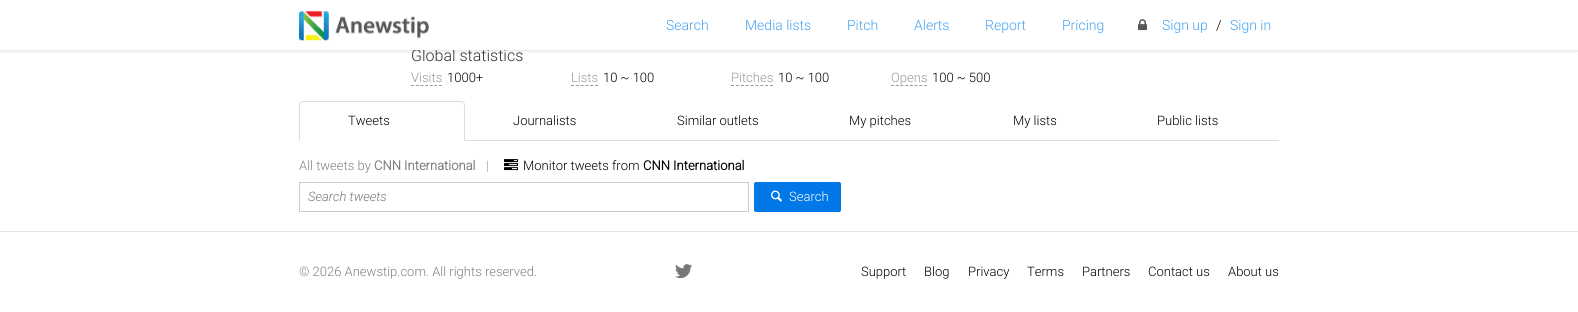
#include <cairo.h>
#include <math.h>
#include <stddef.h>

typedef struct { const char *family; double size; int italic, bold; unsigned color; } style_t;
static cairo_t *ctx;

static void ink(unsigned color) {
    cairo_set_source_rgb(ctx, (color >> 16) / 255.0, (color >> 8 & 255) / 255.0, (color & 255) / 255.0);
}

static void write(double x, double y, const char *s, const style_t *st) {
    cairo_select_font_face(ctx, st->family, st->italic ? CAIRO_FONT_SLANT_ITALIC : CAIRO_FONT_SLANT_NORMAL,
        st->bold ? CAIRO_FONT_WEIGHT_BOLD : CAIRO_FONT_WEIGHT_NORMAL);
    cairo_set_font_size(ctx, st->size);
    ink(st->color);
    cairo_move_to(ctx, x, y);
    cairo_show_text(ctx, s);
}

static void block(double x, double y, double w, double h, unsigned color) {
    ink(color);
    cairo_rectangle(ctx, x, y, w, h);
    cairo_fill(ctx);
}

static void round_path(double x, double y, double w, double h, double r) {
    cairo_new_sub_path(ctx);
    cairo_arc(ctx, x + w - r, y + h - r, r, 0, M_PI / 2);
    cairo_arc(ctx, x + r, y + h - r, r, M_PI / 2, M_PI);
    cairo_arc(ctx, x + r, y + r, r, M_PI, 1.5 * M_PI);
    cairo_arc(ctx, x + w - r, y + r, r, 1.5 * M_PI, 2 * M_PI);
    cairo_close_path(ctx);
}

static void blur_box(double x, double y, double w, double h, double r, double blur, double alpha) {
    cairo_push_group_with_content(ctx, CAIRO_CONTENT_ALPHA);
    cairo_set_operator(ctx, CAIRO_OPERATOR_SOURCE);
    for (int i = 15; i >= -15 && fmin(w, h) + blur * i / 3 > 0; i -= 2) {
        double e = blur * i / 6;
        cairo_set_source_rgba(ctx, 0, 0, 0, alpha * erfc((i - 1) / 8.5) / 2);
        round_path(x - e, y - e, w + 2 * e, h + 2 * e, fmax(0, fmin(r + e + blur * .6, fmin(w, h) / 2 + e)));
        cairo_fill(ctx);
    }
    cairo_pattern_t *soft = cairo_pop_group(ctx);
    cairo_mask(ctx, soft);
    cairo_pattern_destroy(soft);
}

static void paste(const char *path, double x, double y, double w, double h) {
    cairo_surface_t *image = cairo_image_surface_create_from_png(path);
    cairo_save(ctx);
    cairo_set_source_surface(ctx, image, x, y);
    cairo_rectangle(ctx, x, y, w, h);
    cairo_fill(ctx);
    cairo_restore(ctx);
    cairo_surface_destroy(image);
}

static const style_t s1 = {"Roboto Light", 16, 0, 0, 0x333333};
static const style_t s2 = {"Roboto Light", 14, 0, 0, 0x43a2f3};
static const style_t s3 = {"Roboto Light", 14, 0, 0, 0x000000};
static const style_t s4 = {"Roboto Light", 13, 0, 0, 0x999999};
static const style_t s5 = {"Roboto Light", 13, 0, 0, 0x000000};
static const style_t s6 = {"Roboto Light", 13, 0, 0, 0x808080};
static const style_t s7 = {"Roboto", 13, 0, 1, 0x808080};
static const style_t s8 = {"Roboto", 13, 0, 1, 0x000000};
static const style_t s9 = {"Roboto Light", 13, 1, 0, 0x757575};
static const style_t s10 = {"Roboto Light", 13, 0, 0, 0xffffff};

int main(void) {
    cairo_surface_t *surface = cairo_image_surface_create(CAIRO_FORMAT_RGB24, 1578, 312);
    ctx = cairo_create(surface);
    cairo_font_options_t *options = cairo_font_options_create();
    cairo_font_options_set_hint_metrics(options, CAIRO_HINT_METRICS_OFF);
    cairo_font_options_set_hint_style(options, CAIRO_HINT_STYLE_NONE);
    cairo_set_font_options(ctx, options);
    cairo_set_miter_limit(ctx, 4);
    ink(0xffffff);
    cairo_paint(ctx);
    ink(0x000000);
    blur_box(0, 0, 1578, 50, 0, 2.5, 0.18);
    write(411, 61, "Global statistics", &s1);
    block(0, 0, 1578, 50, 0xffffff);
    paste("pic1.png", 299, 10, 130, 31);
    write(666, 30, "Search", &s2);
    write(745, 30, "Media lists", &s2);
    write(847, 30, "Pitch", &s2);
    write(914, 30, "Alerts", &s2);
    write(985, 30, "Report", &s2);
    write(1062, 30, "Pricing", &s2);
    paste("pic2.png", 1138, 19, 9, 12);
    write(1162, 30, "Sign up", &s2);
    write(1216, 30, "/", &s3);
    write(1230, 30, "Sign in", &s2);
    write(411, 82, "Visits", &s4);
    cairo_new_path(ctx);
    cairo_move_to(ctx, 411, 85.5);
    cairo_line_to(ctx, 442, 85.5);
    cairo_set_line_width(ctx, 1);
    cairo_set_dash(ctx, (double[]){3, 1.67}, 2, 0);
    cairo_stroke(ctx);
    write(447, 82, "1000+", &s5);
    write(571, 82, "Lists", &s4);
    cairo_new_path(ctx);
    cairo_move_to(ctx, 571, 85.5);
    cairo_line_to(ctx, 598, 85.5);
    cairo_set_dash(ctx, (double[]){3, 1.8}, 2, 0);
    cairo_stroke(ctx);
    write(603, 82, "10 ~ 100", &s5);
    write(731, 82, "Pitches", &s4);
    cairo_new_path(ctx);
    cairo_move_to(ctx, 731, 85.5);
    cairo_line_to(ctx, 773, 85.5);
    cairo_set_dash(ctx, (double[]){3, 1.88}, 2, 0);
    cairo_stroke(ctx);
    write(778, 82, "10 ~ 100", &s5);
    write(891, 82, "Opens", &s4);
    cairo_new_path(ctx);
    cairo_move_to(ctx, 891, 85.5);
    cairo_line_to(ctx, 927, 85.5);
    cairo_set_dash(ctx, (double[]){3, 1.71}, 2, 0);
    cairo_stroke(ctx);
    write(932, 82, "100 ~ 500", &s5);
    ink(0xdddddd);
    cairo_new_path(ctx);
    cairo_move_to(ctx, 303, 101);
    cairo_line_to(ctx, 300, 102);
    cairo_line_to(ctx, 301, 103);
    cairo_line_to(ctx, 303, 102);
    cairo_line_to(ctx, 461, 102);
    cairo_line_to(ctx, 463, 103);
    cairo_line_to(ctx, 464, 102);
    cairo_line_to(ctx, 461, 101);
    cairo_close_path(ctx);
    cairo_fill(ctx);
    cairo_new_path(ctx);
    cairo_move_to(ctx, 465, 141);
    cairo_line_to(ctx, 465, 105);
    cairo_curve_to(ctx, 465, 104, 464.5, 103, 464, 102);
    cairo_line_to(ctx, 463, 103);
    cairo_curve_to(ctx, 464, 103, 464, 104, 464, 105);
    cairo_line_to(ctx, 464, 140);
    cairo_close_path(ctx);
    cairo_fill(ctx);
    ink(0xffffff);
    cairo_new_path(ctx);
    cairo_move_to(ctx, 465, 141);
    cairo_line_to(ctx, 464, 140);
    cairo_line_to(ctx, 300, 140);
    cairo_line_to(ctx, 299, 141);
    cairo_close_path(ctx);
    cairo_fill(ctx);
    ink(0xdddddd);
    cairo_new_path(ctx);
    cairo_move_to(ctx, 299, 141);
    cairo_line_to(ctx, 300, 140);
    cairo_line_to(ctx, 300, 105);
    cairo_curve_to(ctx, 300, 104, 300, 103, 301, 103);
    cairo_line_to(ctx, 300, 102);
    cairo_curve_to(ctx, 299.5, 103, 299, 104, 299, 105);
    cairo_close_path(ctx);
    cairo_fill(ctx);
    write(348, 125, "Tweets", &s5);
    block(465, 140, 814, 1, 0xdddddd);
    write(513, 125, "Journalists", &s5);
    write(677, 125, "Similar outlets", &s5);
    write(849, 125, "My pitches", &s5);
    write(1013, 125, "My lists", &s5);
    write(1157, 125, "Public lists", &s5);
    write(299, 170, "All tweets by", &s6);
    write(374, 170, "CNN International", &s7);
    write(486, 170, "|", &s4);
    paste("pic3.png", 504, 159, 14, 12);
    write(523, 170, "Monitor tweets from", &s5);
    write(643, 170, "CNN International", &s8);
    cairo_rectangle(ctx, 299.5, 182.5, 449, 29);
    ink(0xcccccc);
    cairo_set_dash(ctx, NULL, 0, 0);
    cairo_stroke(ctx);
    write(308, 201, "Search tweets", &s9);
    ink(0x0078e7);
    round_path(754, 182, 87, 30, 2);
    cairo_fill(ctx);
    paste("pic4.png", 771, 190, 11, 12);
    write(789, 201, "Search", &s10);
    block(0, 231, 1578, 1, 0xe2e3e5);
    write(299, 276, "© 2026 Anewstip.com. All rights reserved.", &s6);
    paste("pic5.png", 675, 264, 17, 15);
    write(861, 276, "Support", &s5);
    write(924, 276, "Blog", &s5);
    write(968, 276, "Privacy", &s5);
    write(1027, 276, "Terms", &s5);
    write(1082, 276, "Partners", &s5);
    write(1148, 276, "Contact us", &s5);
    write(1228, 276, "About us", &s5);
    cairo_surface_write_to_png(surface, "screenshot.png");
    cairo_font_options_destroy(options);
    cairo_destroy(ctx);
    cairo_surface_destroy(surface);
    return 0;
}
